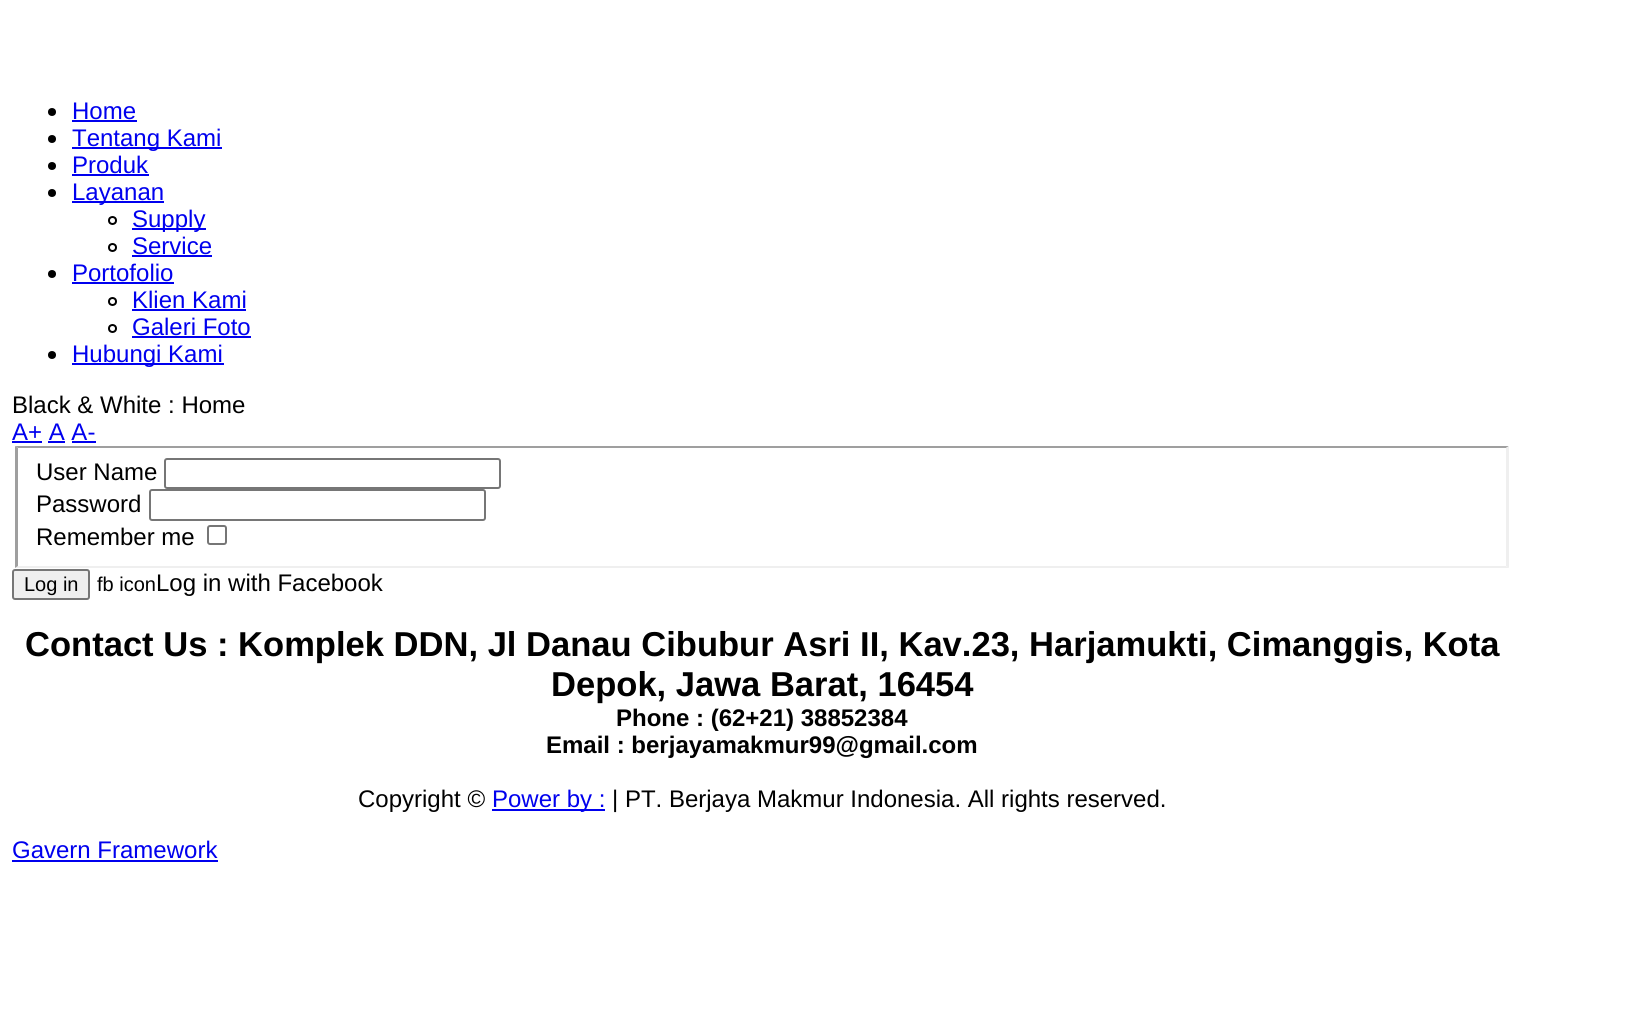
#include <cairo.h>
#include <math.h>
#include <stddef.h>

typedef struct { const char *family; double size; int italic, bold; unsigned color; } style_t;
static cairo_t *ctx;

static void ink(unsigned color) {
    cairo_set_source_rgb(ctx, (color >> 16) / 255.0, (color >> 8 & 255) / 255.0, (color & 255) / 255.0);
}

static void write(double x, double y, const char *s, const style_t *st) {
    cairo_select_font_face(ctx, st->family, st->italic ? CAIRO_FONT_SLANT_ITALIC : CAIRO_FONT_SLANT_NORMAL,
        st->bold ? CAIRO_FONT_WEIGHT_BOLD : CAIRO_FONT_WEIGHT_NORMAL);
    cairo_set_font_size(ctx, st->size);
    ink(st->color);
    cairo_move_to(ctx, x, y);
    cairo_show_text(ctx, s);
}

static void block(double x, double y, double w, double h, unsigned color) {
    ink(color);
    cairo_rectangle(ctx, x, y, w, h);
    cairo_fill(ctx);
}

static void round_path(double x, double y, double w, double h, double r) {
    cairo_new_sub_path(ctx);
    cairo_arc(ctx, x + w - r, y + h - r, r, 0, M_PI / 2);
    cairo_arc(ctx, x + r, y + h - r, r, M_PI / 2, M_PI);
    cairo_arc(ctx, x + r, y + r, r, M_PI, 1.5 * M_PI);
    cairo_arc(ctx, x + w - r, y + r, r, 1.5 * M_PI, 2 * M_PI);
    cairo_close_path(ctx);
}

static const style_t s1 = {"Liberation Sans", 24, 0, 0, 0x0000ee};
static const style_t s2 = {"Liberation Sans", 24, 0, 0, 0x000000};
static const style_t s3 = {"Liberation Sans", 20, 0, 0, 0x000000};
static const style_t s4 = {"Liberation Sans", 34.55, 0, 1, 0x000000};
static const style_t s5 = {"Liberation Sans", 24, 0, 1, 0x000000};

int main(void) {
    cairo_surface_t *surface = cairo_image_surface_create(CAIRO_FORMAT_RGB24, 1632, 1026);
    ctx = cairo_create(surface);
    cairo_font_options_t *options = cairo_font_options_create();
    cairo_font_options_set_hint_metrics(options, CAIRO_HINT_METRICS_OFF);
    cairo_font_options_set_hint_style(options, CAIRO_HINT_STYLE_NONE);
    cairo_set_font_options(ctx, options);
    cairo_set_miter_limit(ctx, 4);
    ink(0xffffff);
    cairo_paint(ctx);
    ink(0x000000);
    cairo_arc(ctx, 52, 112, 4, 0, 2 * M_PI);
    cairo_fill(ctx);
    write(72, 119, "Home", &s1);
    block(72, 120, 65, 2, 0x0000ee);
    ink(0x000000);
    cairo_new_path(ctx);
    cairo_arc(ctx, 52, 139, 4, 0, 2 * M_PI);
    cairo_fill(ctx);
    block(72, 147, 150, 2, 0x0000ee);
    write(72, 146, "Tentang Kami", &s1);
    ink(0x000000);
    cairo_new_path(ctx);
    cairo_arc(ctx, 52, 166, 4, 0, 2 * M_PI);
    cairo_fill(ctx);
    write(72, 173, "Produk", &s1);
    block(72, 174, 77, 2, 0x0000ee);
    ink(0x000000);
    cairo_new_path(ctx);
    cairo_arc(ctx, 52, 193, 4, 0, 2 * M_PI);
    cairo_fill(ctx);
    block(72, 201, 92, 2, 0x0000ee);
    write(72, 200, "Layanan", &s1);
    cairo_new_path(ctx);
    cairo_arc(ctx, 112.5, 220.5, 3.5, 0, 2 * M_PI);
    ink(0x000000);
    cairo_stroke(ctx);
    block(132, 228, 74, 2, 0x0000ee);
    write(132, 227, "Supply", &s1);
    cairo_new_path(ctx);
    cairo_arc(ctx, 112.5, 247.5, 3.5, 0, 2 * M_PI);
    ink(0x000000);
    cairo_stroke(ctx);
    write(132, 254, "Service", &s1);
    block(132, 255, 80, 2, 0x0000ee);
    ink(0x000000);
    cairo_new_path(ctx);
    cairo_arc(ctx, 52, 274, 4, 0, 2 * M_PI);
    cairo_fill(ctx);
    write(72, 281, "Portofolio", &s1);
    block(72, 282, 102, 2, 0x0000ee);
    cairo_new_path(ctx);
    cairo_arc(ctx, 112.5, 301.5, 3.5, 0, 2 * M_PI);
    ink(0x000000);
    cairo_stroke(ctx);
    write(132, 308, "Klien Kami", &s1);
    block(132, 309, 114, 2, 0x0000ee);
    cairo_new_path(ctx);
    cairo_arc(ctx, 112.5, 328.5, 3.5, 0, 2 * M_PI);
    ink(0x000000);
    cairo_stroke(ctx);
    write(132, 335, "Galeri Foto", &s1);
    block(132, 336, 119, 2, 0x0000ee);
    ink(0x000000);
    cairo_new_path(ctx);
    cairo_arc(ctx, 52, 355, 4, 0, 2 * M_PI);
    cairo_fill(ctx);
    block(72, 363, 152, 2, 0x0000ee);
    write(72, 362, "Hubungi Kami", &s1);
    write(12, 413, "Black & White : Home", &s2);
    write(12, 440, "A+ A A-", &s1);
    block(12, 441, 30, 2, 0x0000ee);
    block(48, 441, 17, 2, 0x0000ee);
    block(72, 441, 24, 2, 0x0000ee);
    ink(0x9f9f9f);
    cairo_new_path(ctx);
    cairo_move_to(ctx, 15, 446);
    cairo_line_to(ctx, 1509, 446);
    cairo_line_to(ctx, 1506, 448);
    cairo_line_to(ctx, 18, 448);
    cairo_close_path(ctx);
    cairo_fill(ctx);
    ink(0xefefef);
    cairo_new_path(ctx);
    cairo_move_to(ctx, 1509, 446);
    cairo_line_to(ctx, 1509, 568);
    cairo_line_to(ctx, 1506, 566);
    cairo_line_to(ctx, 1506, 448);
    cairo_close_path(ctx);
    cairo_fill(ctx);
    cairo_new_path(ctx);
    cairo_move_to(ctx, 1509, 568);
    cairo_line_to(ctx, 15, 568);
    cairo_line_to(ctx, 18, 566);
    cairo_line_to(ctx, 1506, 566);
    cairo_close_path(ctx);
    cairo_fill(ctx);
    ink(0x9f9f9f);
    cairo_new_path(ctx);
    cairo_move_to(ctx, 15, 568);
    cairo_line_to(ctx, 15, 446);
    cairo_line_to(ctx, 18, 448);
    cairo_line_to(ctx, 18, 566);
    cairo_close_path(ctx);
    cairo_fill(ctx);
    write(36, 480, "User Name", &s2);
    round_path(165, 459, 335, 29, 2);
    ink(0x767676);
    cairo_stroke(ctx);
    write(36, 512, "Password", &s2);
    round_path(150, 490, 335, 30, 2);
    ink(0x767676);
    cairo_stroke(ctx);
    write(36, 545, "Remember me", &s2);
    round_path(208, 526, 18, 18, 2);
    ink(0x767676);
    cairo_stroke(ctx);
    ink(0xefefef);
    round_path(13, 570, 76, 29, 2);
    cairo_fill_preserve(ctx);
    ink(0x767676);
    cairo_stroke(ctx);
    write(24, 591, "Log in", &s3);
    write(97, 591, "fb icon", &s3);
    write(156, 591, "Log in with Facebook", &s2);
    write(25, 656, "Contact Us : Komplek DDN, Jl Danau Cibubur Asri II, Kav.23, Harjamukti, Cimanggis, Kota", &s4);
    write(551, 696, "Depok, Jawa Barat, 16454", &s4);
    write(616, 726, "Phone : (62+21) 38852384", &s5);
    write(546, 753, "Email : berjayamakmur99@gmail.com", &s5);
    write(358, 807, "Copyright ©", &s2);
    block(492, 809, 113, 2, 0x0000ee);
    write(492, 807, "Power by :", &s1);
    write(612, 807, "| PT. Berjaya Makmur Indonesia. All rights reserved.", &s2);
    write(12, 858, "Gavern Framework", &s1);
    block(12, 860, 206, 2, 0x0000ee);
    cairo_surface_write_to_png(surface, "screenshot.png");
    cairo_font_options_destroy(options);
    cairo_destroy(ctx);
    cairo_surface_destroy(surface);
    return 0;
}
